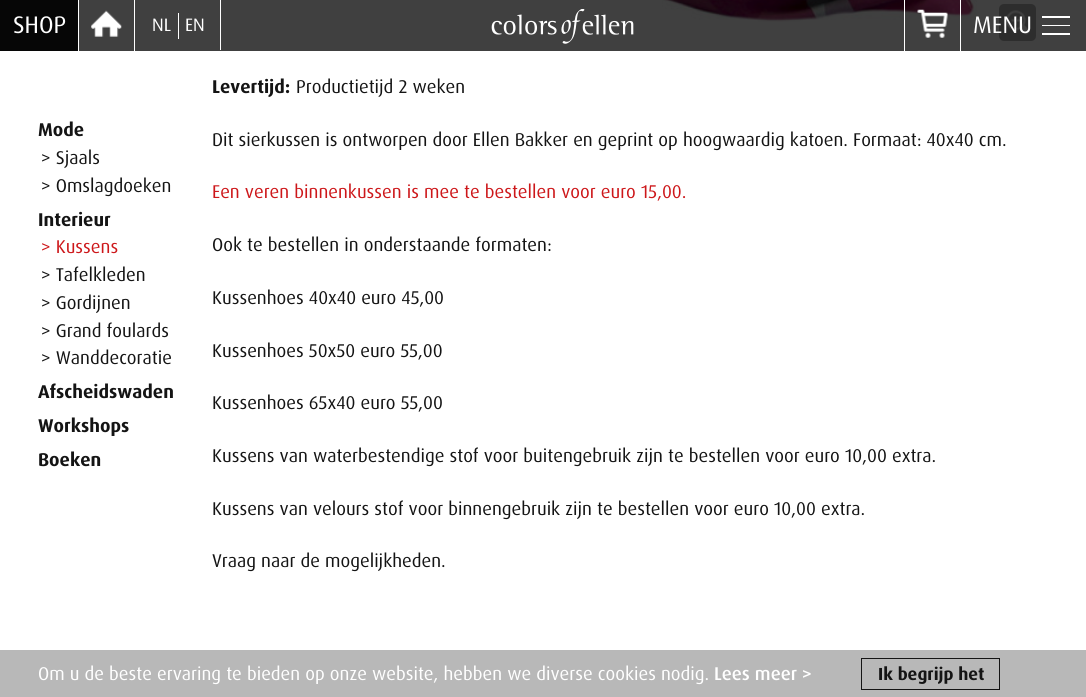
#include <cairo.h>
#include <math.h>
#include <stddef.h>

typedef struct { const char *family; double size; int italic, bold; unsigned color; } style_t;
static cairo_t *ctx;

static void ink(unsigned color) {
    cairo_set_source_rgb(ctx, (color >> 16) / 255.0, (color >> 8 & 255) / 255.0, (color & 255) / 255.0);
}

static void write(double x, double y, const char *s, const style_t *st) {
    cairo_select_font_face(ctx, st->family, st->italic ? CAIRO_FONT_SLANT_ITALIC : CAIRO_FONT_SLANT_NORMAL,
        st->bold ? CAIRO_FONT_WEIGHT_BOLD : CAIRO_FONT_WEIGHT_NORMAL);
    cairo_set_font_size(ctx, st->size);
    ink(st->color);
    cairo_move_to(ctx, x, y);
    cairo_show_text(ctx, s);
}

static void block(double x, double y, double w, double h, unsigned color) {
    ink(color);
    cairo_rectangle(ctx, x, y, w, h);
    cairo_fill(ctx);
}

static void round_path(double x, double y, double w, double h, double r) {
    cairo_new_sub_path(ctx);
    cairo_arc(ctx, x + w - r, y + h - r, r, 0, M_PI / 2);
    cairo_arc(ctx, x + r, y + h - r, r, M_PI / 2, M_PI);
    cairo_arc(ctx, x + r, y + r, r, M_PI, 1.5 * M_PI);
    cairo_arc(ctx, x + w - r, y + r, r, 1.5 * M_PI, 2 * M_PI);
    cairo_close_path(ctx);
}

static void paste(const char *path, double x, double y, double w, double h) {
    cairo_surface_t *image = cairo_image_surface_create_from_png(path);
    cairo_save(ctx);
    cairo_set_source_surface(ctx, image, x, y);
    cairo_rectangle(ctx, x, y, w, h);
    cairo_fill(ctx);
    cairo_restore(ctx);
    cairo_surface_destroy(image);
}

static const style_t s1 = {"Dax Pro", 24, 0, 0, 0xffffff};
static const style_t s2 = {"Dax Pro", 18, 0, 0, 0xffffff};
static const style_t s3 = {"Dax Pro", 18.5, 0, 1, 0x141414};
static const style_t s4 = {"Dax Pro", 18.5, 0, 0, 0x141414};
static const style_t s5 = {"Dax Pro", 18.5, 0, 0, 0xcd171a};
static const style_t s6 = {"Dax Pro", 18.5, 0, 0, 0xffffff};
static const style_t s7 = {"Dax Pro Medium", 18.5, 0, 0, 0xffffff};
static const style_t s8 = {"Dax Pro", 17.5, 0, 1, 0x141414};

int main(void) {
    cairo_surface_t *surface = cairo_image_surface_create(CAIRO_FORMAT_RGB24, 1086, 697);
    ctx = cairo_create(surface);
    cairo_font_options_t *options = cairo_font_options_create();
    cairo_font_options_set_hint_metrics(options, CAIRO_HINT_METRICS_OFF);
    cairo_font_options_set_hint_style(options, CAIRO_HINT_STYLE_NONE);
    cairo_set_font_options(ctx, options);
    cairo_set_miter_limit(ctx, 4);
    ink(0xffffff);
    cairo_paint(ctx);
    block(79, 0, 1007, 51, 0x404040);
    block(0, 0, 78, 51, 0x060606);
    write(13, 33, "SHOP", &s1);
    block(134, 0, 1, 51, 0xffffff);
    paste("pic1.png", 91, 10, 31, 27);
    block(220, 0, 1, 50, 0xffffff);
    block(178, 13, 1, 26, 0xffffff);
    write(152, 31, "NL", &s2);
    write(185, 31, "EN", &s2);
    paste("pic2.png", 491, 9, 143, 35);
    paste("pic4.png", 662, 0, 315, 22);
    block(904, 0, 1, 51, 0xffffff);
    paste("pic3.png", 917, 9, 31, 29);
    block(960, 0, 1, 51, 0xffffff);
    ink(0x2d2d2d);
    round_path(999, 4, 37, 37, 5);
    cairo_fill(ctx);
    paste("pic5.png", 1006, 10, 24, 25);
    write(973, 33, "MENU", &s1);
    block(1042, 16, 28, 2, 0xffffff);
    block(1042, 25, 28, 1, 0xffffff);
    block(1042, 33, 28, 2, 0xffffff);
    write(38, 136, "Mode", &s3);
    write(41, 164, "> Sjaals", &s4);
    write(41, 192, "> Omslagdoeken", &s4);
    write(38, 226, "Interieur", &s3);
    write(41, 253, "> Kussens", &s5);
    write(41, 281, "> Tafelkleden", &s4);
    write(41, 309, "> Gordijnen", &s4);
    write(41, 337, "> Grand foulards", &s4);
    write(41, 364, "> Wanddecoratie", &s4);
    write(38, 398, "Afscheidswaden", &s3);
    write(38, 432, "Workshops", &s3);
    write(38, 466, "Boeken", &s3);
    write(212, 93, "Levertijd:", &s3);
    write(296, 93, "Productietijd 2 weken", &s4);
    write(212, 146, "Dit sierkussen is ontworpen door Ellen Bakker en geprint op hoogwaardig katoen. Formaat: 40x40 cm.", &s4);
    write(212, 198, "Een veren binnenkussen is mee te bestellen voor euro 15,00.", &s5);
    write(212, 251, "Ook te bestellen in onderstaande formaten:", &s4);
    write(212, 304, "Kussenhoes 40x40 euro 45,00", &s4);
    write(212, 357, "Kussenhoes 50x50 euro 55,00", &s4);
    write(212, 409, "Kussenhoes 65x40 euro 55,00", &s4);
    write(212, 462, "Kussens van waterbestendige stof voor buitengebruik zijn te bestellen voor euro 10,00 extra.", &s4);
    write(212, 515, "Kussens van velours stof voor binnengebruik zijn te bestellen voor euro 10,00 extra.", &s4);
    write(212, 567, "Vraag naar de mogelijkheden.", &s4);
    block(0, 650, 1086, 47, 0xb8b8b8);
    write(38, 680, "Om u de beste ervaring te bieden op onze website, hebben we diverse cookies nodig.", &s6);
    write(714, 680, "Lees meer >", &s7);
    cairo_rectangle(ctx, 861.5, 658.5, 138, 31);
    ink(0x141414);
    cairo_set_line_width(ctx, 1);
    cairo_stroke(ctx);
    write(878, 680, "Ik begrijp het", &s8);
    cairo_surface_write_to_png(surface, "screenshot.png");
    cairo_font_options_destroy(options);
    cairo_destroy(ctx);
    cairo_surface_destroy(surface);
    return 0;
}
